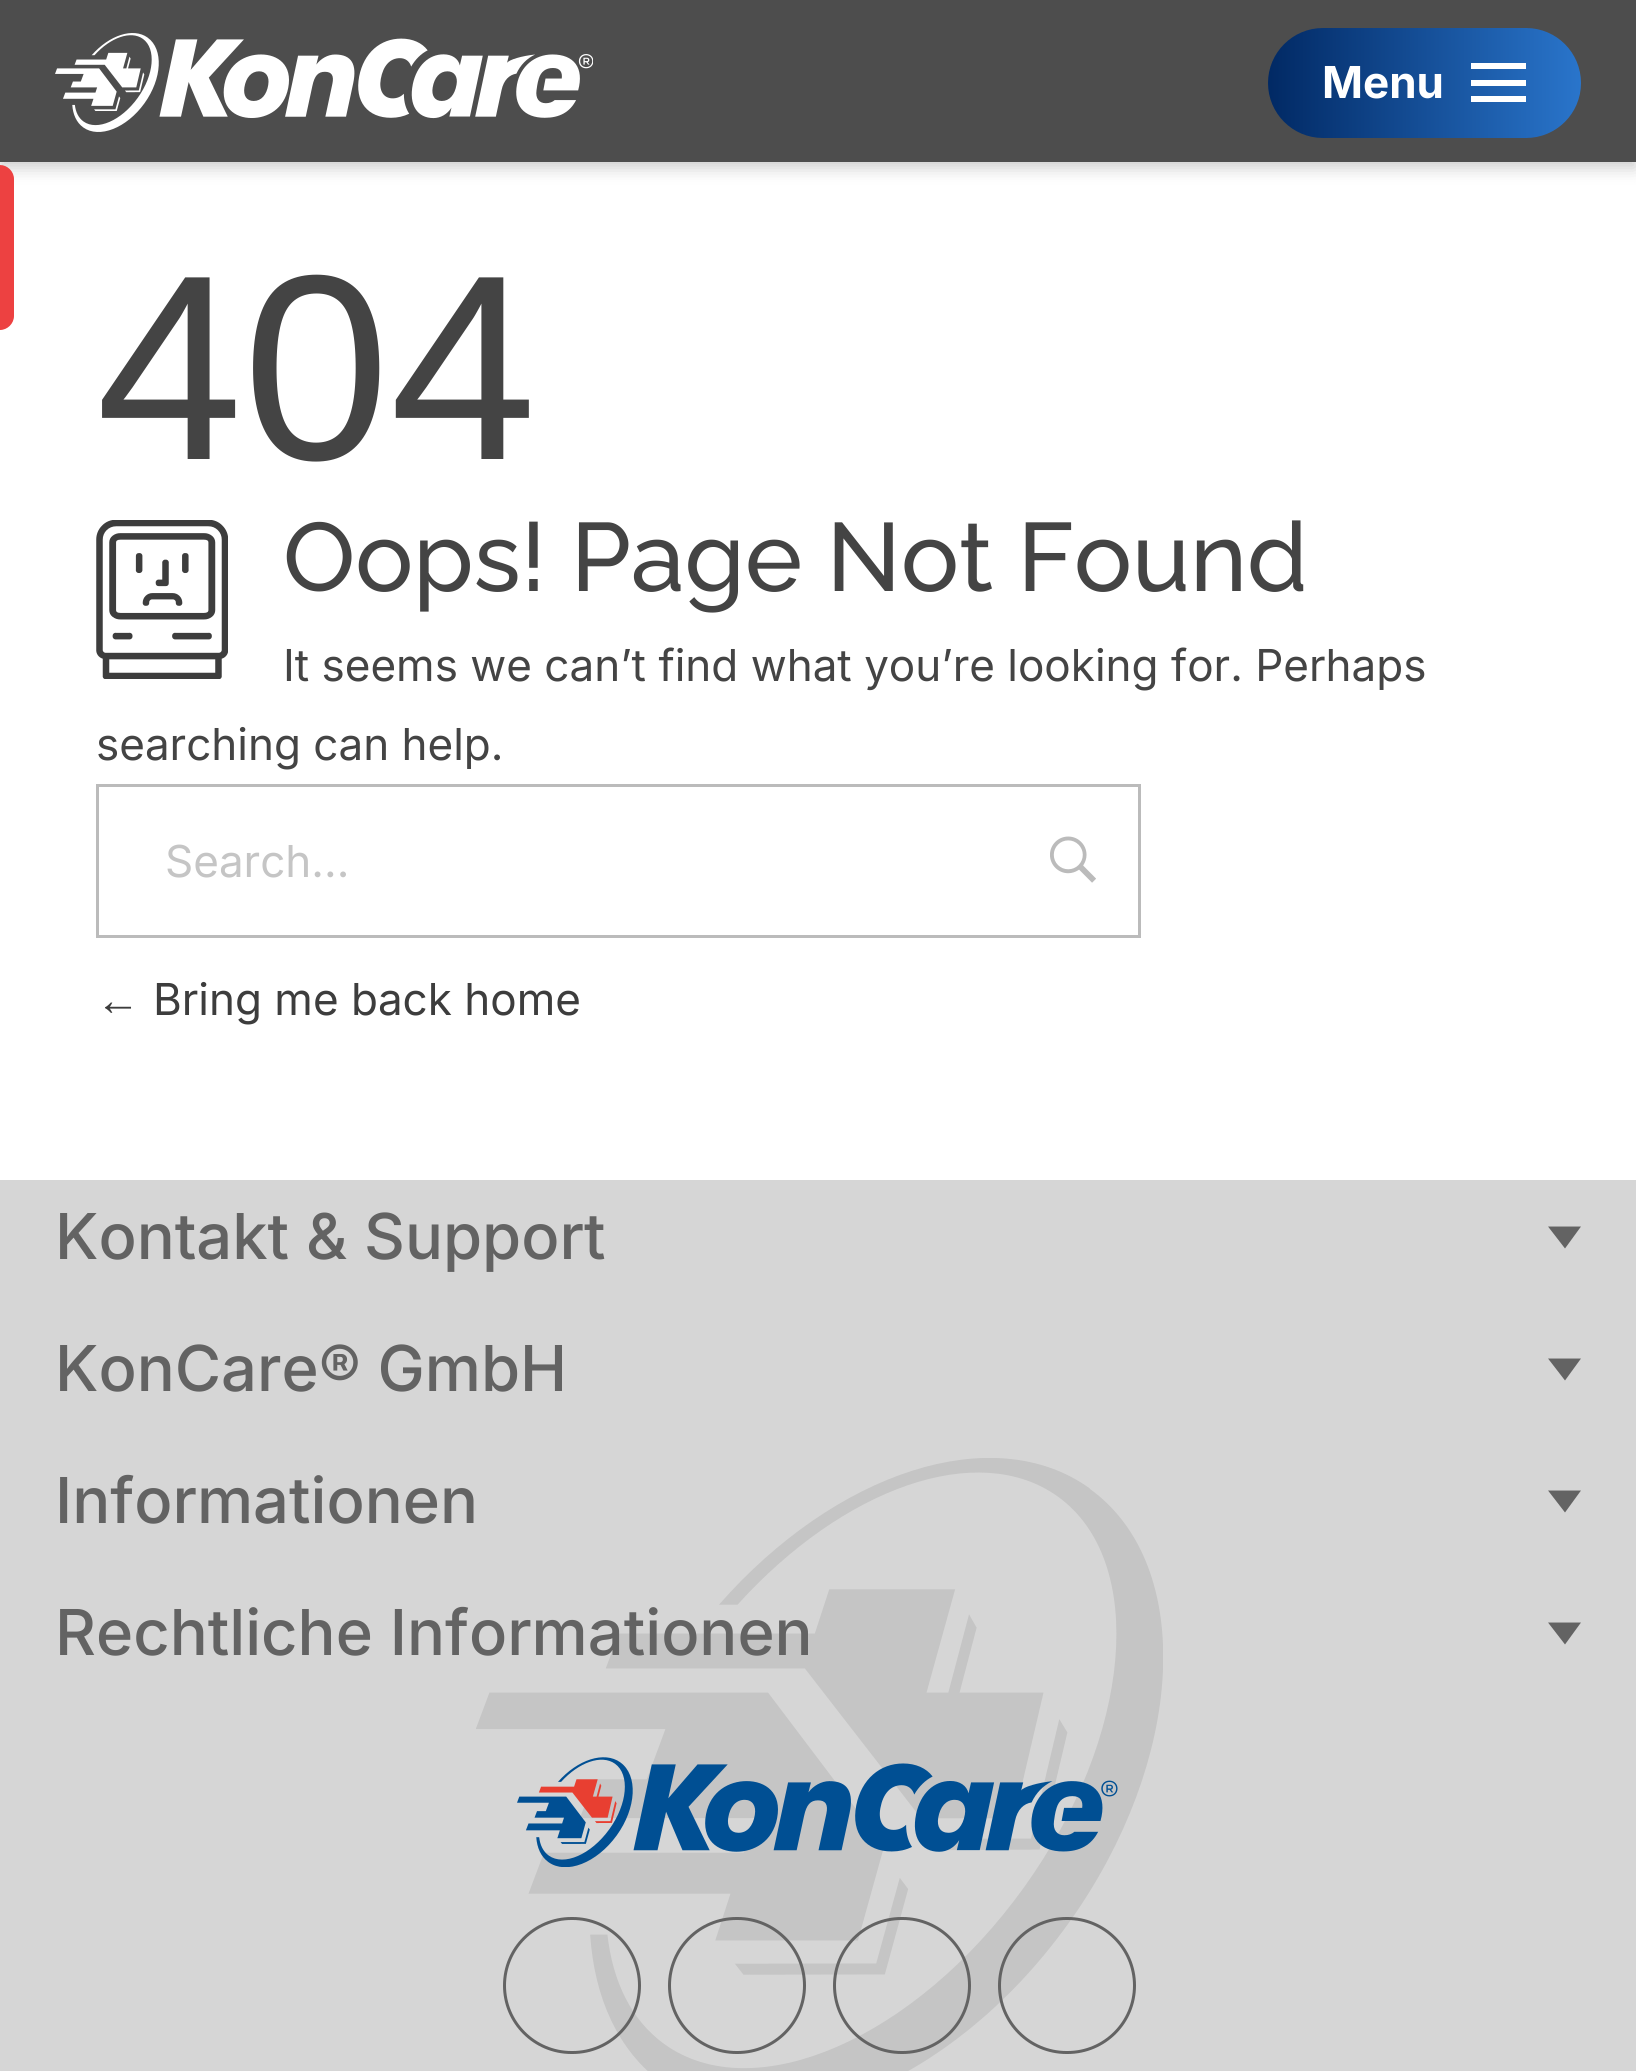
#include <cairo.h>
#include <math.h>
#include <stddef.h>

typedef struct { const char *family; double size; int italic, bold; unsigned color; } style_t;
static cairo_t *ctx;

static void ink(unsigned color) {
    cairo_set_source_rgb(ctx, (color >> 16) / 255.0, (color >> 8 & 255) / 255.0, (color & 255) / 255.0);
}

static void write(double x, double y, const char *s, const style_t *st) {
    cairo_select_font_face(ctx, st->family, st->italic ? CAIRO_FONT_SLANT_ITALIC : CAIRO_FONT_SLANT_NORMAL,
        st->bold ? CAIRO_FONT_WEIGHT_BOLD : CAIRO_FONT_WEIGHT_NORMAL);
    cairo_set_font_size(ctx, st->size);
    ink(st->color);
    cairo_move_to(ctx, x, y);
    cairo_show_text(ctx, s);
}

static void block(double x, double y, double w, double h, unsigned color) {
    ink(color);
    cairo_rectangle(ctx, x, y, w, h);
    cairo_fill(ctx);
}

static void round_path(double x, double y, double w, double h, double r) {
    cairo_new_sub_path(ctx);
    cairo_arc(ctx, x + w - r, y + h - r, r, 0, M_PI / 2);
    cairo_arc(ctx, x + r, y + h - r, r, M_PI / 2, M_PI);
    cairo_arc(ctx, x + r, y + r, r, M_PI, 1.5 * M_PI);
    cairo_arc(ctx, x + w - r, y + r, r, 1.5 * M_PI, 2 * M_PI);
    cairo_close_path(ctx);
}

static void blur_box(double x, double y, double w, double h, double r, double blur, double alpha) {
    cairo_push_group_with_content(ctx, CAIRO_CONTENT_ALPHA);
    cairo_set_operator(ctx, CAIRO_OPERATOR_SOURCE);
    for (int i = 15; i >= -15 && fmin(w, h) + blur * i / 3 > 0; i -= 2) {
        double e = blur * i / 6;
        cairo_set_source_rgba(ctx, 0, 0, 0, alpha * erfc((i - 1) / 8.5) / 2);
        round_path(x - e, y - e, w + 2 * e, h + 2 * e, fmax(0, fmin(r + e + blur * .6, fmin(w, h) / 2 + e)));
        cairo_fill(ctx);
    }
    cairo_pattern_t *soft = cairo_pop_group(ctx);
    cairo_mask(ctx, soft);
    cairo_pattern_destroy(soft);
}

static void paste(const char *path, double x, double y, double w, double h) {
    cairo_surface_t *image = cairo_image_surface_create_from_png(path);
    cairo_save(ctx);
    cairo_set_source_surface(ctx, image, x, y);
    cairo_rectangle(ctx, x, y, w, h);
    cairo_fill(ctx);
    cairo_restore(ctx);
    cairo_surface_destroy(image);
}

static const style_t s1 = {"Inter", 44, 0, 1, 0xffffff};
static const style_t s2 = {"Liberation Sans", 264, 0, 0, 0x444444};
static const style_t s3 = {"Raleway Medium", 96.75, 0, 0, 0x444444};
static const style_t s4 = {"Inter", 44, 0, 0, 0x444444};
static const style_t s5 = {"Inter", 44, 0, 0, 0xc5c5c5};
static const style_t s6 = {"Liberation Sans", 44, 0, 0, 0x3d3d3d};
static const style_t s7 = {"Inter", 44, 0, 0, 0x3d3d3d};
static const style_t s8 = {"Inter Medium", 63.25, 0, 0, 0x636363};

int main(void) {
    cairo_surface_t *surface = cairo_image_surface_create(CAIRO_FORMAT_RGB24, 1636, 2071);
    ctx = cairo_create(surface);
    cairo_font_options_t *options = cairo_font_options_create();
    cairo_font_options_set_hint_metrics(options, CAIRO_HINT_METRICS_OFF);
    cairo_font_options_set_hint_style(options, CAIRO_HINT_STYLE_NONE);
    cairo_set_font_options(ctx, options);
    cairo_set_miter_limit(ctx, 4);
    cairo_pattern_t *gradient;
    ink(0xffffff);
    cairo_paint(ctx);
    ink(0x000000);
    blur_box(0, 6, 1636, 162, 0, 8, 0.2);
    block(0, 0, 1636, 162, 0x4d4d4d);
    paste("pic1.png", 55, 33, 538, 99);
    gradient = cairo_pattern_create_linear(1268, 83, 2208, 82);
    cairo_pattern_add_color_stop_rgba(gradient, 0, 0.004, 0.161, 0.392, 1);
    cairo_pattern_add_color_stop_rgba(gradient, 0.5, 0.243, 0.608, 1, 1);
    cairo_pattern_add_color_stop_rgba(gradient, 1, 0.004, 0.161, 0.392, 1);
    cairo_set_source(ctx, gradient);
    cairo_pattern_destroy(gradient);
    round_path(1268, 28, 313, 110, 55);
    cairo_fill(ctx);
    write(1322, 98, "Menu", &s1);
    block(1471, 63, 55, 6, 0xffffff);
    block(1471, 80, 55, 6, 0xffffff);
    block(1471, 96, 55, 6, 0xffffff);
    ink(0xed4141);
    cairo_new_path(ctx);
    cairo_move_to(ctx, 0, 165);
    cairo_curve_to(ctx, 7.5, 165, 14, 171.5, 14, 179);
    cairo_line_to(ctx, 14, 316);
    cairo_curve_to(ctx, 14, 323.5, 7.5, 330, 0, 330);
    cairo_close_path(ctx);
    cairo_fill(ctx);
    write(96, 459, "404", &s2);
    paste("pic2.png", 96, 520, 132, 159);
    write(283, 591, "Oops! Page Not Found", &s3);
    write(283, 681, "It seems we can’t find what you’re looking for. Perhaps", &s4);
    write(96, 760, "searching can help.", &s4);
    cairo_rectangle(ctx, 97.5, 785.5, 1042, 151);
    ink(0xbbbbbb);
    cairo_set_line_width(ctx, 3);
    cairo_stroke(ctx);
    write(165, 877, "Search...", &s5);
    paste("pic3.png", 1050, 836, 46, 47);
    write(96, 1015, "←", &s6);
    write(153, 1015, "Bring me back home", &s7);
    block(0, 1180, 1636, 891, 0xd6d6d6);
    write(55, 1259, "Kontakt & Support", &s8);
    cairo_new_path(ctx);
    cairo_move_to(ctx, 1548, 1226.5);
    cairo_line_to(ctx, 1581, 1226.5);
    cairo_line_to(ctx, 1565, 1248.5);
    cairo_close_path(ctx);
    cairo_fill(ctx);
    write(55, 1391, "KonCare® GmbH", &s8);
    cairo_new_path(ctx);
    cairo_move_to(ctx, 1548, 1358.5);
    cairo_line_to(ctx, 1581, 1358.5);
    cairo_line_to(ctx, 1565, 1380.5);
    cairo_close_path(ctx);
    cairo_fill(ctx);
    write(55, 1523, "Informationen", &s8);
    cairo_new_path(ctx);
    cairo_move_to(ctx, 1548, 1490.5);
    cairo_line_to(ctx, 1581, 1490.5);
    cairo_line_to(ctx, 1565, 1512.5);
    cairo_close_path(ctx);
    cairo_fill(ctx);
    paste("pic5.png", 476, 1458, 687, 613);
    write(55, 1655, "Rechtliche Informationen", &s8);
    cairo_new_path(ctx);
    cairo_move_to(ctx, 1548, 1622.5);
    cairo_line_to(ctx, 1581, 1622.5);
    cairo_line_to(ctx, 1565, 1644.5);
    cairo_close_path(ctx);
    cairo_fill(ctx);
    paste("pic4.png", 517, 1757, 601, 110);
    round_path(504.5, 1918.5, 135, 134, 67);
    cairo_stroke(ctx);
    round_path(669.5, 1918.5, 135, 134, 67);
    cairo_stroke(ctx);
    round_path(834.5, 1918.5, 135, 134, 67);
    cairo_stroke(ctx);
    round_path(999.5, 1918.5, 135, 134, 67);
    cairo_stroke(ctx);
    cairo_surface_write_to_png(surface, "screenshot.png");
    cairo_font_options_destroy(options);
    cairo_destroy(ctx);
    cairo_surface_destroy(surface);
    return 0;
}
